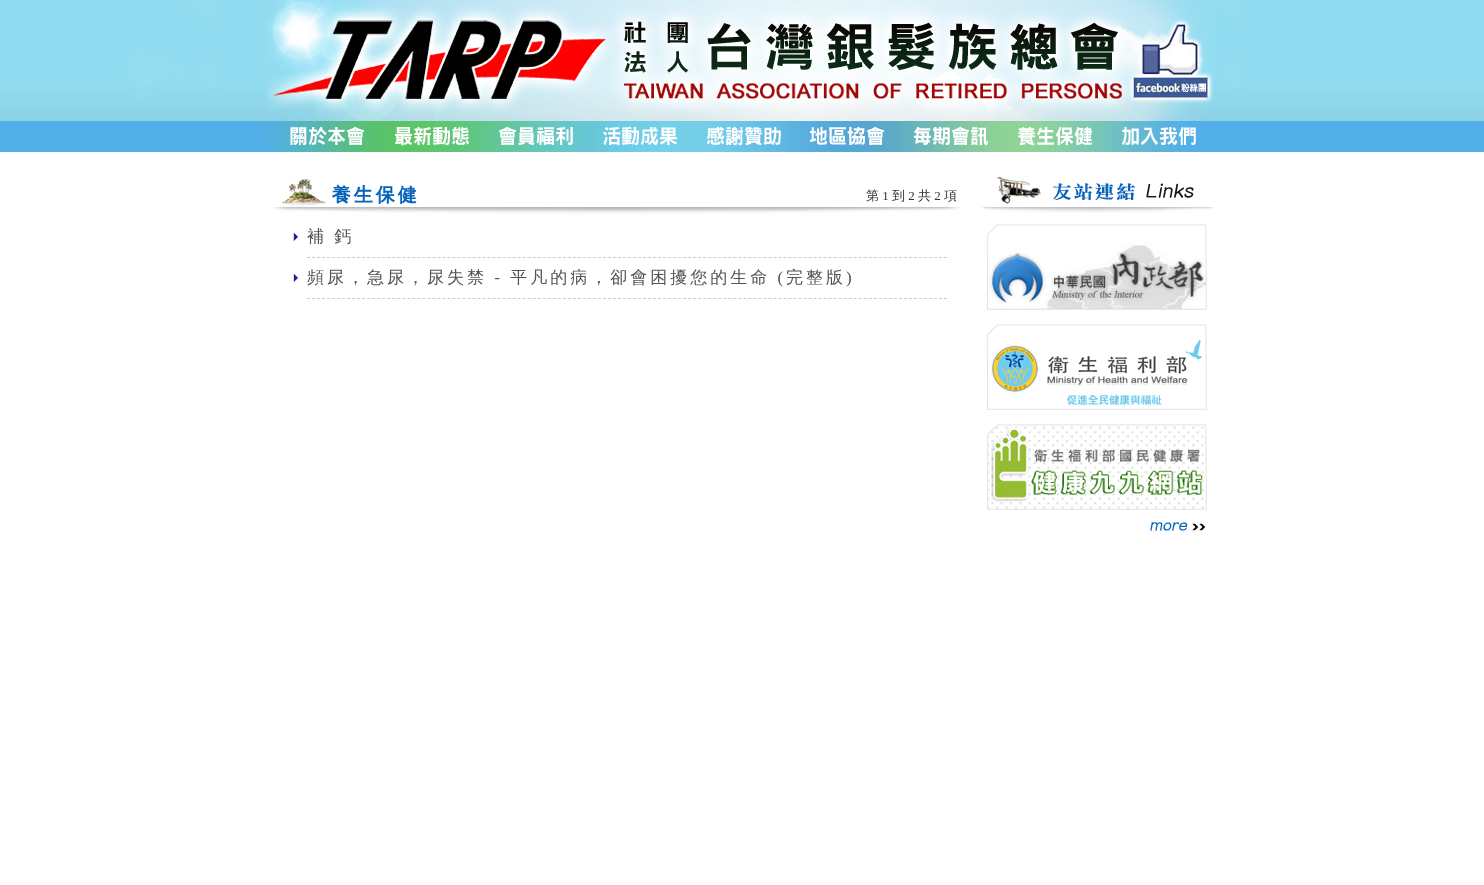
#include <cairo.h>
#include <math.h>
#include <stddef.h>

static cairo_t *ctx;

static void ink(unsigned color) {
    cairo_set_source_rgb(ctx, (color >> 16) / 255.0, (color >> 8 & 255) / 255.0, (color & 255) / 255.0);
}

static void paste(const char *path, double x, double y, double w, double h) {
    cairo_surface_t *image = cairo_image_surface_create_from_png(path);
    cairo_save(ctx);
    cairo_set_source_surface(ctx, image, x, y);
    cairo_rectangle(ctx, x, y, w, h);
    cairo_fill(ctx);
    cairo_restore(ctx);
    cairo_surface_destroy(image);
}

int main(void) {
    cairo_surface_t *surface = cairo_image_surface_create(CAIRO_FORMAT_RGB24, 1484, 885);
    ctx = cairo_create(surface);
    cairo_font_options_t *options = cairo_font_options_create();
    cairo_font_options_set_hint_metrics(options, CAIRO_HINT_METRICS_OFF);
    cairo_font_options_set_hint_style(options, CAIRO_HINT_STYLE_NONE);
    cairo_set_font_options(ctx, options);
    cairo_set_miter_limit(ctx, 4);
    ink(0xffffff);
    cairo_paint(ctx);
    paste("pic1.png", 0, 0, 1484, 152);
    paste("pic2.png", 267, 0, 948, 121);
    paste("pic3.png", 267, 121, 112, 31);
    paste("pic4.png", 379, 121, 106, 31);
    paste("pic5.png", 485, 121, 103, 31);
    paste("pic6.png", 588, 121, 103, 31);
    paste("pic7.png", 691, 121, 104, 31);
    paste("pic8.png", 795, 121, 106, 31);
    paste("pic9.png", 901, 121, 102, 31);
    paste("pic10.png", 1003, 121, 100, 31);
    paste("pic11.png", 1103, 121, 93, 31);
    paste("pic12.png", 272, 179, 690, 120);
    paste("pic13.png", 981, 177, 233, 36);
    paste("pic14.png", 987, 224, 220, 86);
    paste("pic15.png", 987, 324, 220, 86);
    paste("pic16.png", 987, 424, 220, 86);
    paste("pic17.png", 1147, 517, 59, 14);
    cairo_surface_write_to_png(surface, "screenshot.png");
    cairo_font_options_destroy(options);
    cairo_destroy(ctx);
    cairo_surface_destroy(surface);
    return 0;
}
